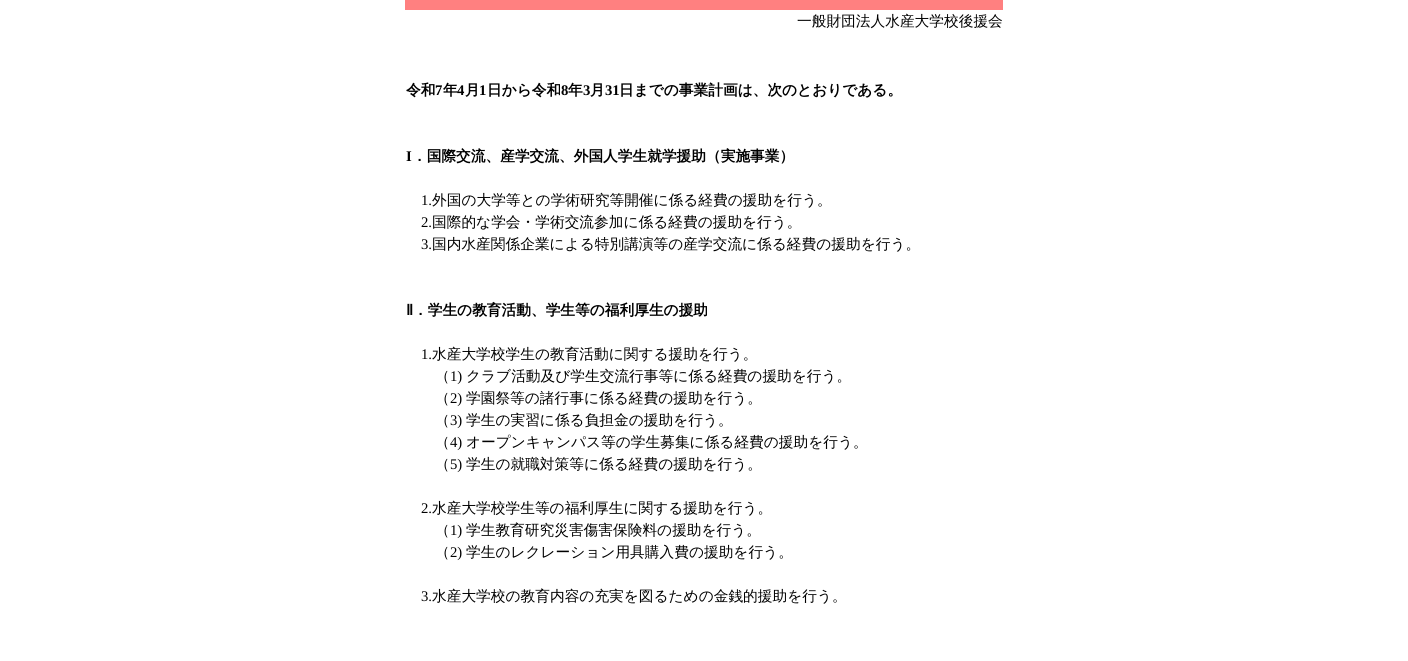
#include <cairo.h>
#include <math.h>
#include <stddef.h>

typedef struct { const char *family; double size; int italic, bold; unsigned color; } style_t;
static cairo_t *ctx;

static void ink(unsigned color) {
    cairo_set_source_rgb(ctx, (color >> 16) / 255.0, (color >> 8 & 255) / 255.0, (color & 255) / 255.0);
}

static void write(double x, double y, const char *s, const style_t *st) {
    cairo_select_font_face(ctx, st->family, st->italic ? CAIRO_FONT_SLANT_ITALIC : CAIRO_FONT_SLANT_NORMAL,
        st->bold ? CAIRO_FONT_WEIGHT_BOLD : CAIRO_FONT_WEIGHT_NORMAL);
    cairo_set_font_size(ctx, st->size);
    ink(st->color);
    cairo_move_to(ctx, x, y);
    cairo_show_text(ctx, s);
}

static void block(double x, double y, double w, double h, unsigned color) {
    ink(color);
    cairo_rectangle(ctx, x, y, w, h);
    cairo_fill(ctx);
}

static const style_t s1 = {"WenQuanYi Zen Hei Medium", 14.7, 0, 0, 0x000000};
static const style_t s2 = {"WenQuanYi Zen Hei", 14.7, 0, 1, 0x000000};
static const style_t s3 = {"Liberation Serif", 14.7, 0, 1, 0x000000};
static const style_t s4 = {"Liberation Serif", 14.7, 0, 0, 0x000000};
static const style_t s5 = {"DejaVu Sans", 14.7, 0, 1, 0x000000};

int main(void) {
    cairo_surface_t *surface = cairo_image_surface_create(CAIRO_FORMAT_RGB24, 1408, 661);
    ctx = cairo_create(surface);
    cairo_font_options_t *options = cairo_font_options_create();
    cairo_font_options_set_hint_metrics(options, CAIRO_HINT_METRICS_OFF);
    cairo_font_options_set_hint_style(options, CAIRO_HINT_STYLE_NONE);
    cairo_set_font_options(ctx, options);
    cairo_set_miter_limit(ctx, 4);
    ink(0xffffff);
    cairo_paint(ctx);
    block(405, 0, 598, 10, 0xff8080);
    write(797, 26, "一般財団法人水産大学校後援会", &s1);
    write(406, 95, "令和", &s2);
    write(435, 95, "7", &s3);
    write(443, 95, "年", &s2);
    write(457, 95, "4", &s3);
    write(465, 95, "月", &s2);
    write(479, 95, "1", &s3);
    write(487, 95, "日から令和", &s2);
    write(561, 95, "8", &s3);
    write(568, 95, "年", &s2);
    write(583, 95, "3", &s3);
    write(590, 95, "月", &s2);
    write(605, 95, "31", &s3);
    write(619, 95, "日までの事業計画は、次のとおりである。", &s2);
    write(406, 161, "I", &s3);
    write(412, 161, "．国際交流、産学交流、外国人学生就学援助（実施事業）", &s2);
    write(421, 205, "1.", &s4);
    write(432, 205, "外国の大学等との学術研究等開催に係る経費の援助を行う。", &s1);
    write(421, 227, "2.", &s4);
    write(432, 227, "国際的な学会・学術交流参加に係る経費の援助を行う。", &s1);
    write(421, 249, "3.", &s4);
    write(432, 249, "国内水産関係企業による特別講演等の産学交流に係る経費の援助を行う。", &s1);
    write(406, 315, "Ⅱ", &s5);
    write(413, 315, "．学生の教育活動、学生等の福利厚生の援助", &s2);
    write(421, 359, "1.", &s4);
    write(432, 359, "水産大学校学生の教育活動に関する援助を行う。", &s1);
    write(435, 381, "（", &s1);
    write(450, 381, "1)", &s4);
    write(466, 381, "クラブ活動及び学生交流行事等に係る経費の援助を行う。", &s1);
    write(435, 403, "（", &s1);
    write(450, 403, "2)", &s4);
    write(466, 403, "学園祭等の諸行事に係る経費の援助を行う。", &s1);
    write(435, 425, "（", &s1);
    write(450, 425, "3)", &s4);
    write(466, 425, "学生の実習に係る負担金の援助を行う。", &s1);
    write(435, 447, "（", &s1);
    write(450, 447, "4)", &s4);
    write(466, 447, "オープンキャンパス等の学生募集に係る経費の援助を行う。", &s1);
    write(435, 469, "（", &s1);
    write(450, 469, "5)", &s4);
    write(466, 469, "学生の就職対策等に係る経費の援助を行う。", &s1);
    write(421, 513, "2.", &s4);
    write(432, 513, "水産大学校学生等の福利厚生に関する援助を行う。", &s1);
    write(435, 535, "（", &s1);
    write(450, 535, "1)", &s4);
    write(466, 535, "学生教育研究災害傷害保険料の援助を行う。", &s1);
    write(435, 557, "（", &s1);
    write(450, 557, "2)", &s4);
    write(466, 557, "学生のレクレーション用具購入費の援助を行う。", &s1);
    write(421, 601, "3.", &s4);
    write(432, 601, "水産大学校の教育内容の充実を図るための金銭的援助を行う。", &s1);
    cairo_surface_write_to_png(surface, "screenshot.png");
    cairo_font_options_destroy(options);
    cairo_destroy(ctx);
    cairo_surface_destroy(surface);
    return 0;
}
